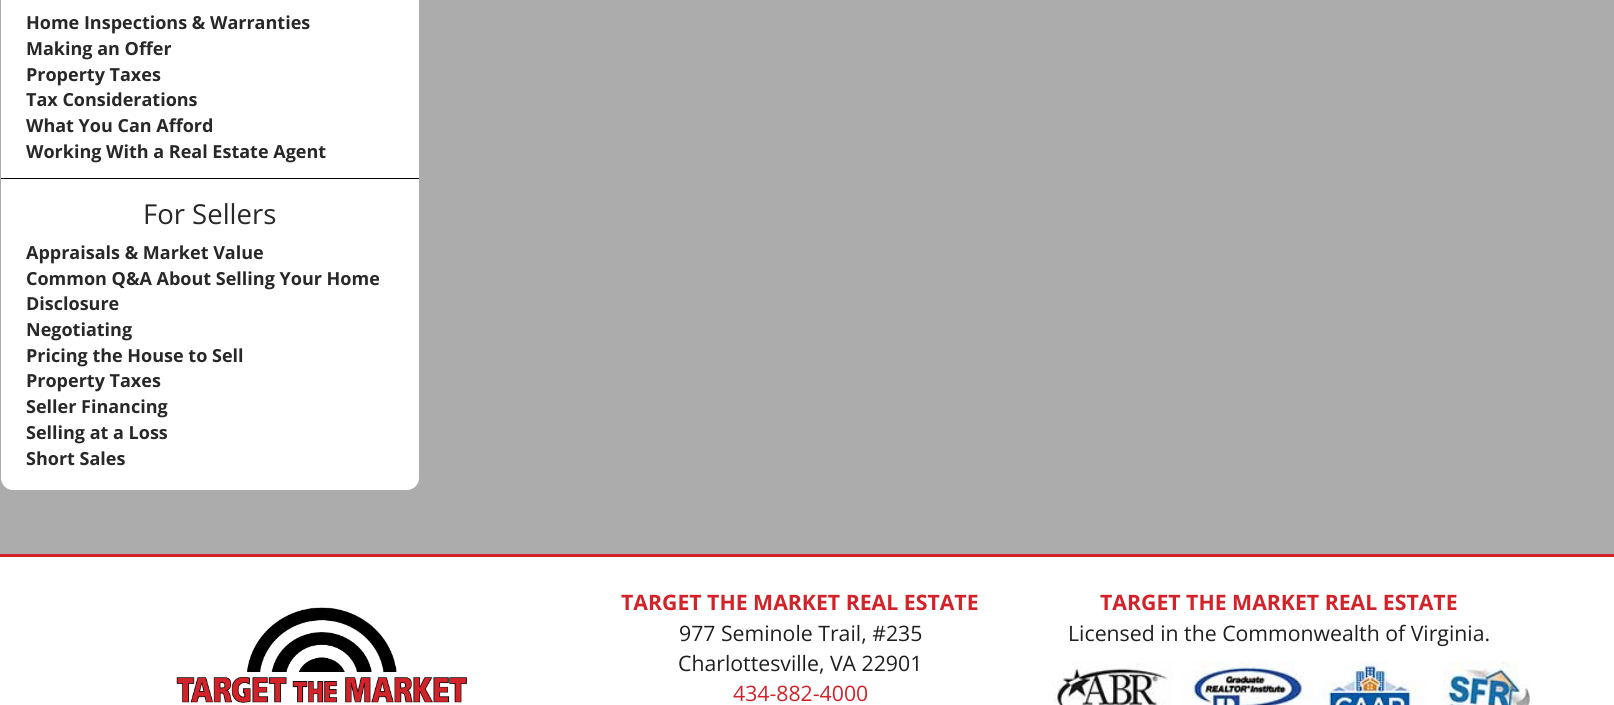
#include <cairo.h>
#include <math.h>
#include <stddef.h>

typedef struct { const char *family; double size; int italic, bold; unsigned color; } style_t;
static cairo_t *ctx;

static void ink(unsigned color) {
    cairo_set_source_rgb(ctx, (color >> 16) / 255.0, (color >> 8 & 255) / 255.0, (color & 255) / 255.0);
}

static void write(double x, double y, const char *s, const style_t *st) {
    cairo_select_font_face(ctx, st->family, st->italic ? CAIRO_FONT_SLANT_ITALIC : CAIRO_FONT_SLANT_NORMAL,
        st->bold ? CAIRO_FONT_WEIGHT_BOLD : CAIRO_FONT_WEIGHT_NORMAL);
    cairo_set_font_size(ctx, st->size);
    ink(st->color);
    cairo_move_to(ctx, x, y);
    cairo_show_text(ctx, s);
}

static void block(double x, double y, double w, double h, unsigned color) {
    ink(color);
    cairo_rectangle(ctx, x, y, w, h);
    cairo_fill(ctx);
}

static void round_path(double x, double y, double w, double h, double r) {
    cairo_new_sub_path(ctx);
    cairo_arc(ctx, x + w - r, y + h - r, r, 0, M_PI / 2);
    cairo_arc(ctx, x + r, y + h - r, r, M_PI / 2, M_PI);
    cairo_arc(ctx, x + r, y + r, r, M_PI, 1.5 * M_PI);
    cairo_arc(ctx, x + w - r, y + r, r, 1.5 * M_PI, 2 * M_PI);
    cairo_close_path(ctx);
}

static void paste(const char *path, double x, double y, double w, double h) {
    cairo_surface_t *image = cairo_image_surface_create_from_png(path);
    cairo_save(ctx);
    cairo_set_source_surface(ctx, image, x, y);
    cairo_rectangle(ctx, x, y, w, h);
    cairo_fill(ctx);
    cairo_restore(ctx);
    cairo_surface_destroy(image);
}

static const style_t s1 = {"Open Sans", 18, 0, 1, 0x282828};
static const style_t s2 = {"Open Sans", 27.5, 0, 0, 0x282828};
static const style_t s3 = {"Open Sans", 21.25, 0, 1, 0xd2232a};
static const style_t s4 = {"Open Sans", 21.25, 0, 0, 0x1f1f1f};
static const style_t s5 = {"Open Sans", 21.25, 0, 0, 0xd2232a};

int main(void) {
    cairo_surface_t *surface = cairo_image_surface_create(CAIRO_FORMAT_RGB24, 1614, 705);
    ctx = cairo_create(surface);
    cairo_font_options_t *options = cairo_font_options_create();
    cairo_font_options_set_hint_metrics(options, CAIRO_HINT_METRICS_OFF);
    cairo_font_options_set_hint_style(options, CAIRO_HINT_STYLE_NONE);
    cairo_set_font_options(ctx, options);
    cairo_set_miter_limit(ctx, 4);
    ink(0xacacac);
    cairo_paint(ctx);
    ink(0xffffff);
    round_path(0.5, -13.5, 419, 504, 12.5);
    cairo_fill_preserve(ctx);
    ink(0xacacac);
    cairo_set_line_width(ctx, 1);
    cairo_stroke(ctx);
    block(1, 178, 418, 1, 0x000000);
    write(26, 29, "Home Inspections & Warranties", &s1);
    write(26, 55, "Making an Offer", &s1);
    write(26, 81, "Property Taxes", &s1);
    write(26, 106, "Tax Considerations", &s1);
    write(26, 132, "What You Can Afford", &s1);
    write(26, 158, "Working With a Real Estate Agent", &s1);
    write(143, 224, "For Sellers", &s2);
    write(26, 259, "Appraisals & Market Value", &s1);
    write(26, 285, "Common Q&A About Selling Your Home", &s1);
    write(26, 310, "Disclosure", &s1);
    write(26, 336, "Negotiating", &s1);
    write(26, 362, "Pricing the House to Sell", &s1);
    write(26, 387, "Property Taxes", &s1);
    write(26, 413, "Seller Financing", &s1);
    write(26, 439, "Selling at a Loss", &s1);
    write(26, 465, "Short Sales", &s1);
    block(0, 557, 1614, 148, 0xffffff);
    block(0, 554, 1614, 3, 0xd2232a);
    paste("pic1.png", 176, 607, 291, 96);
    write(621, 610, "TARGET THE MARKET REAL ESTATE", &s3);
    write(679, 641, "977 Seminole Trail, #235", &s4);
    write(678, 671, "Charlottesville, VA 22901", &s4);
    write(733, 701, "434-882-4000", &s5);
    write(1100, 610, "TARGET THE MARKET REAL ESTATE", &s3);
    write(1068, 641, "Licensed in the Commonwealth of Virginia.", &s4);
    paste("pic2.png", 1052, 661, 478, 44);
    cairo_surface_write_to_png(surface, "screenshot.png");
    cairo_font_options_destroy(options);
    cairo_destroy(ctx);
    cairo_surface_destroy(surface);
    return 0;
}
